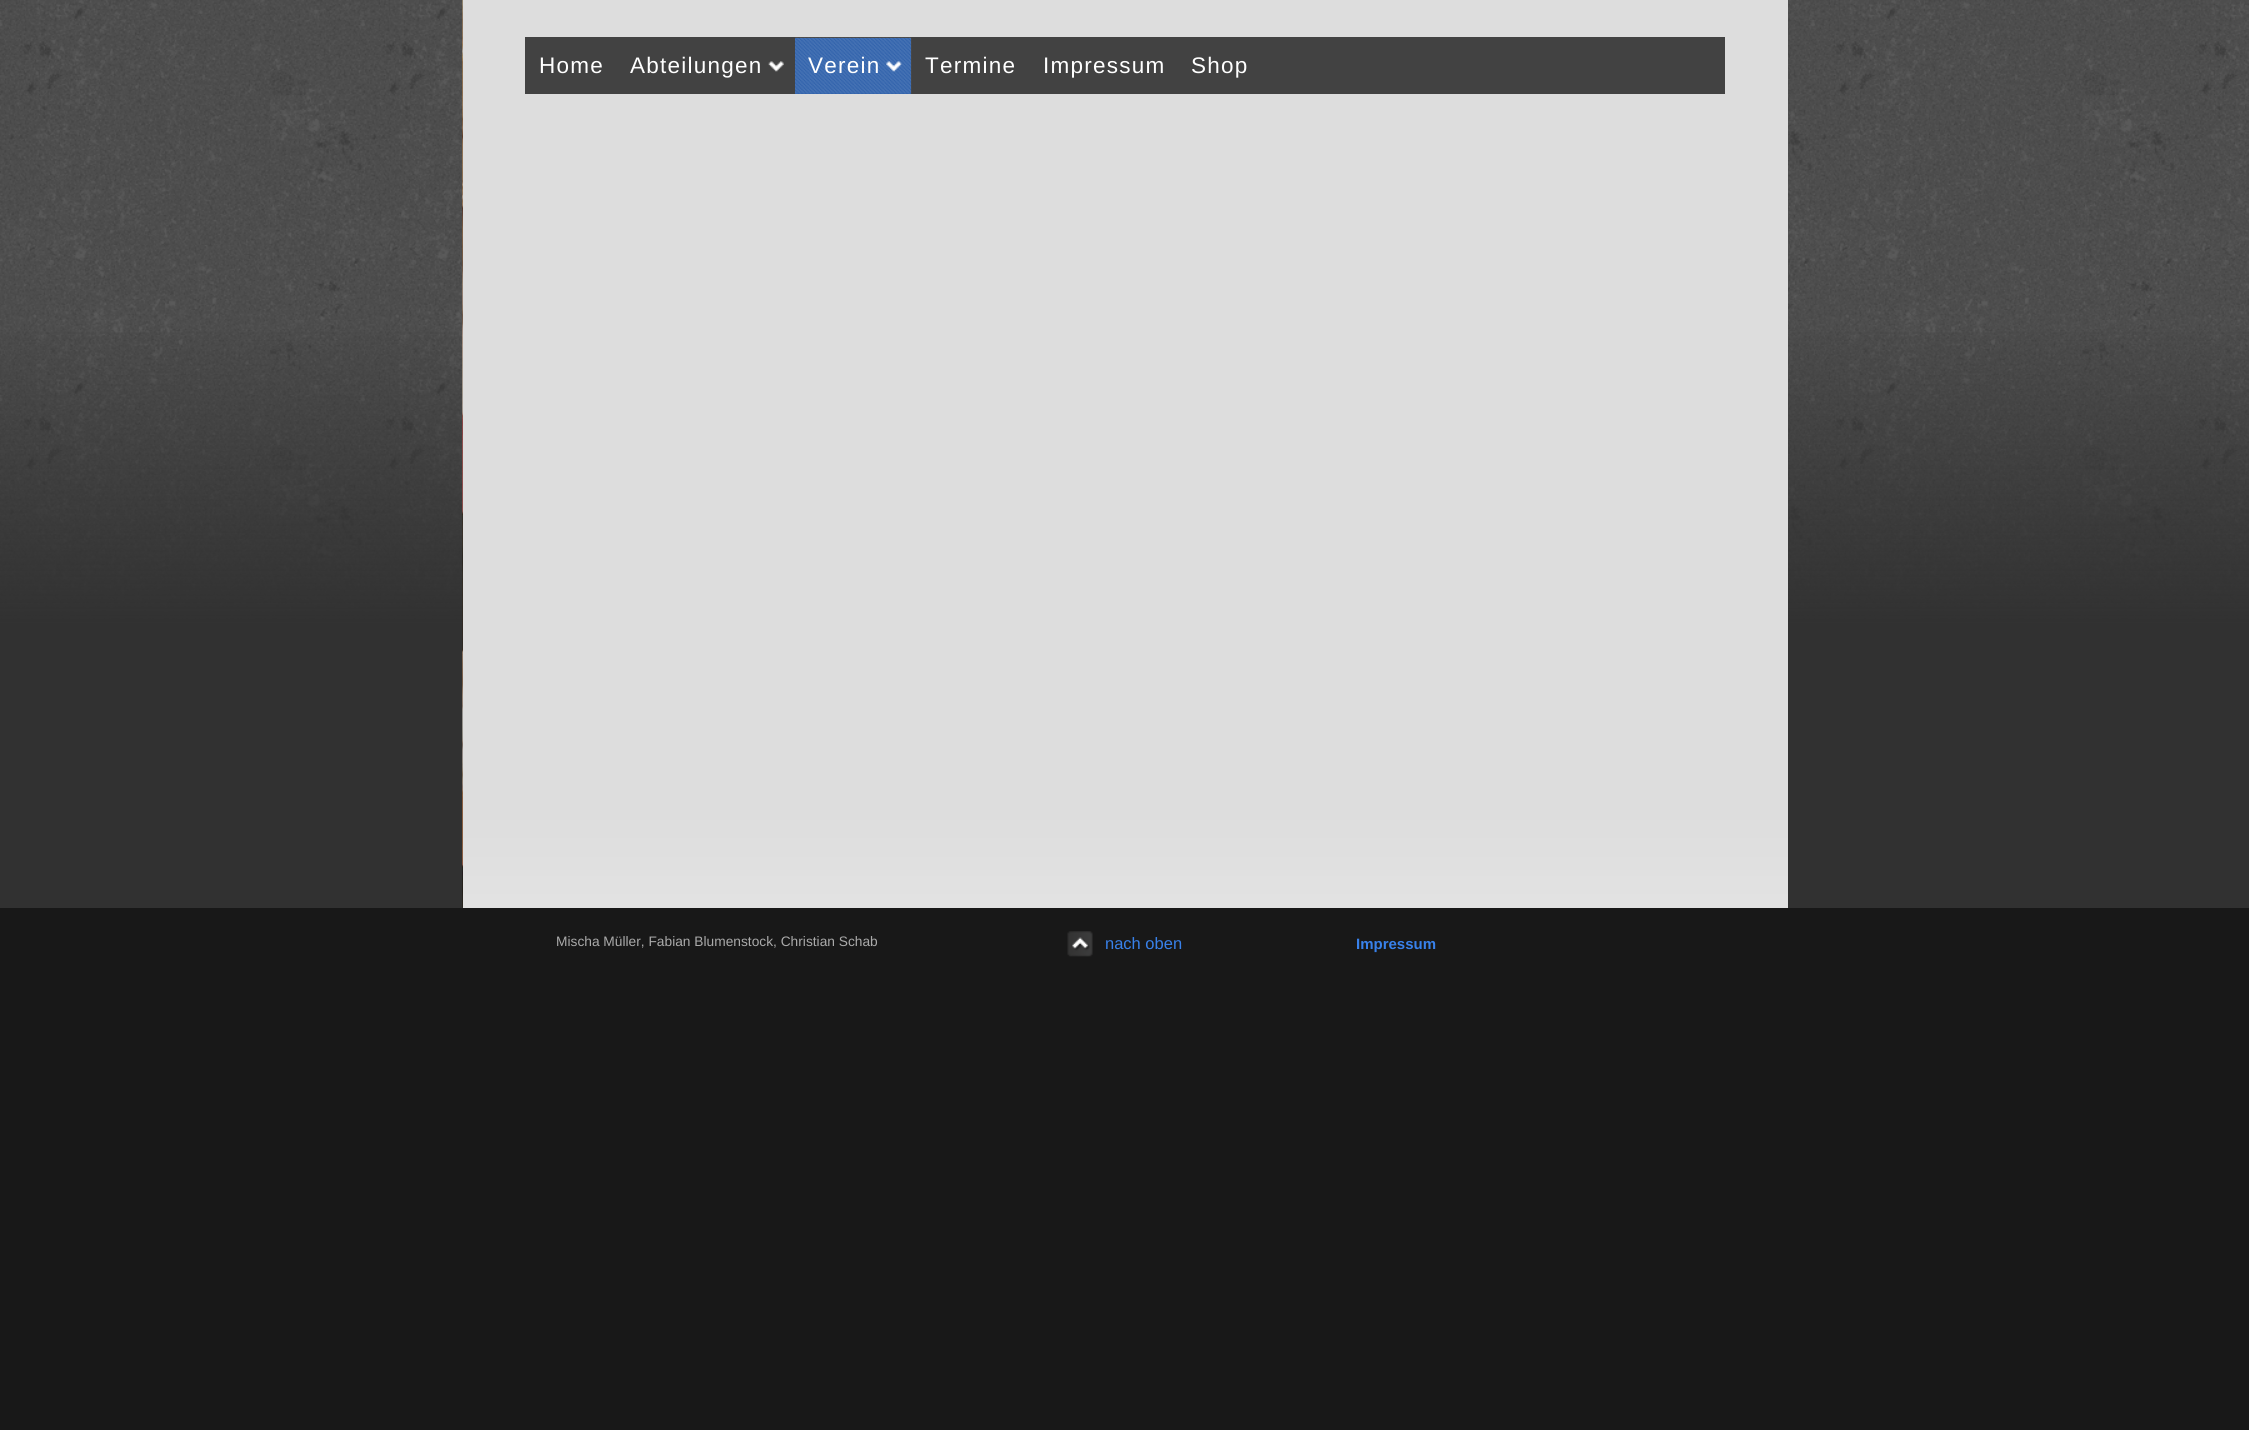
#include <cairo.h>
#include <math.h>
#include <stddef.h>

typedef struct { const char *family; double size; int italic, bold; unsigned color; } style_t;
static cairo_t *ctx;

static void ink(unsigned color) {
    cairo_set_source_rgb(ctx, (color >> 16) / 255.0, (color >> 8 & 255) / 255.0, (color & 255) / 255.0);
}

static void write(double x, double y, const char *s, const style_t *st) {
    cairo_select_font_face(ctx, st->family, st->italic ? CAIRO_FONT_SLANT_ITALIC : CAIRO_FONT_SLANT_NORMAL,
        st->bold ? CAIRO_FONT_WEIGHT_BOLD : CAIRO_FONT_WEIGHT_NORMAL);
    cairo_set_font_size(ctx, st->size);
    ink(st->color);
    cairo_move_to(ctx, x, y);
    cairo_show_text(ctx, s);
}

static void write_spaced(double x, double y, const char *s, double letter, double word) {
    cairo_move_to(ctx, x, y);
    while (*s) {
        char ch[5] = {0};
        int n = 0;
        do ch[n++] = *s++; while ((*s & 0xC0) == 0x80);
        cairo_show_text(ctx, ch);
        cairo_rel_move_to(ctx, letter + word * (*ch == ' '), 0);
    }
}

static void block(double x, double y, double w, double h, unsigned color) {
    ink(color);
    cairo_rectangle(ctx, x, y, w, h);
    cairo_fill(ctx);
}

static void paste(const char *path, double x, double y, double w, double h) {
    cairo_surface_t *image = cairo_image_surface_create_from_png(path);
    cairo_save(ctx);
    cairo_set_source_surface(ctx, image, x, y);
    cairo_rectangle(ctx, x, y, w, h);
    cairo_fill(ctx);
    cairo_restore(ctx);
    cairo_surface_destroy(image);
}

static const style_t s1 = {"Liberation Sans", 13.75, 0, 0, 0xaaaaaa};
static const style_t s2 = {"Liberation Sans", 16.5, 0, 0, 0x3881ea};
static const style_t s3 = {"Liberation Sans", 15, 0, 1, 0x3881ea};

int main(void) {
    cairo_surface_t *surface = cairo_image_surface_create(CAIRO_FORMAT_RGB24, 2249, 1430);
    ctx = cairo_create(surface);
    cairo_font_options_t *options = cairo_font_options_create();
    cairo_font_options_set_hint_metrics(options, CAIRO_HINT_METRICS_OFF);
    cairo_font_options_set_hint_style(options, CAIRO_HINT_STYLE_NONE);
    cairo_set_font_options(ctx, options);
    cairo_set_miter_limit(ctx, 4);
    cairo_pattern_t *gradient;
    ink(0x181818);
    cairo_paint(ctx);
    block(0, 0, 2249, 908, 0x313131);
    paste("pic1.png", 0, 0, 2249, 623);
    gradient = cairo_pattern_create_linear(1125, 312, 1125, 625);
    cairo_pattern_add_color_stop_rgba(gradient, 0, 0.192, 0.192, 0.192, 0);
    cairo_pattern_add_color_stop_rgba(gradient, 1, 0.192, 0.192, 0.192, 1);
    cairo_set_source(ctx, gradient);
    cairo_pattern_destroy(gradient);
    cairo_rectangle(ctx, 0, 332, 2249, 291);
    cairo_fill(ctx);
    paste("pic2.png", 462, 0, 1, 908);
    block(463, 0, 1325, 813, 0xdddddd);
    gradient = cairo_pattern_create_linear(1472, 812, 1472, 1125);
    cairo_pattern_add_color_stop_rgba(gradient, 0, 0.867, 0.867, 0.867, 1);
    cairo_pattern_add_color_stop_rgba(gradient, 1, 0.933, 0.933, 0.933, 1);
    cairo_set_source(ctx, gradient);
    cairo_pattern_destroy(gradient);
    cairo_rectangle(ctx, 463, 813, 1325, 95);
    cairo_fill(ctx);
    block(525, 37, 1200, 57, 0x424242);
    cairo_select_font_face(ctx, "Liberation Sans", CAIRO_FONT_SLANT_NORMAL, CAIRO_FONT_WEIGHT_NORMAL);
    cairo_set_font_size(ctx, 22.5);
    ink(0xffffff);
    write_spaced(539, 73, "Home", 1.25, 0);
    write_spaced(630, 73, "Abteilungen", 1.25, 0);
    paste("pic3.png", 768, 61, 16, 11);
    block(795, 38, 116, 56, 0x2358a6);
    paste("pic4.png", 795, 37, 117, 57);
    ink(0xffffff);
    write_spaced(808, 73, "Verein", 1.25, 0);
    paste("pic5.png", 886, 61, 16, 11);
    write_spaced(925, 73, "Termine", 1.25, 0);
    write_spaced(1043, 73, "Impressum", 1.25, 0);
    write_spaced(1191, 73, "Shop", 1.25, 0);
    write(556, 946, "Mischa Müller, Fabian Blumenstock, Christian Schab", &s1);
    paste("pic6.png", 1067, 931, 26, 26);
    write(1105, 949, "nach oben", &s2);
    write(1356, 949, "Impressum", &s3);
    cairo_surface_write_to_png(surface, "screenshot.png");
    cairo_font_options_destroy(options);
    cairo_destroy(ctx);
    cairo_surface_destroy(surface);
    return 0;
}
